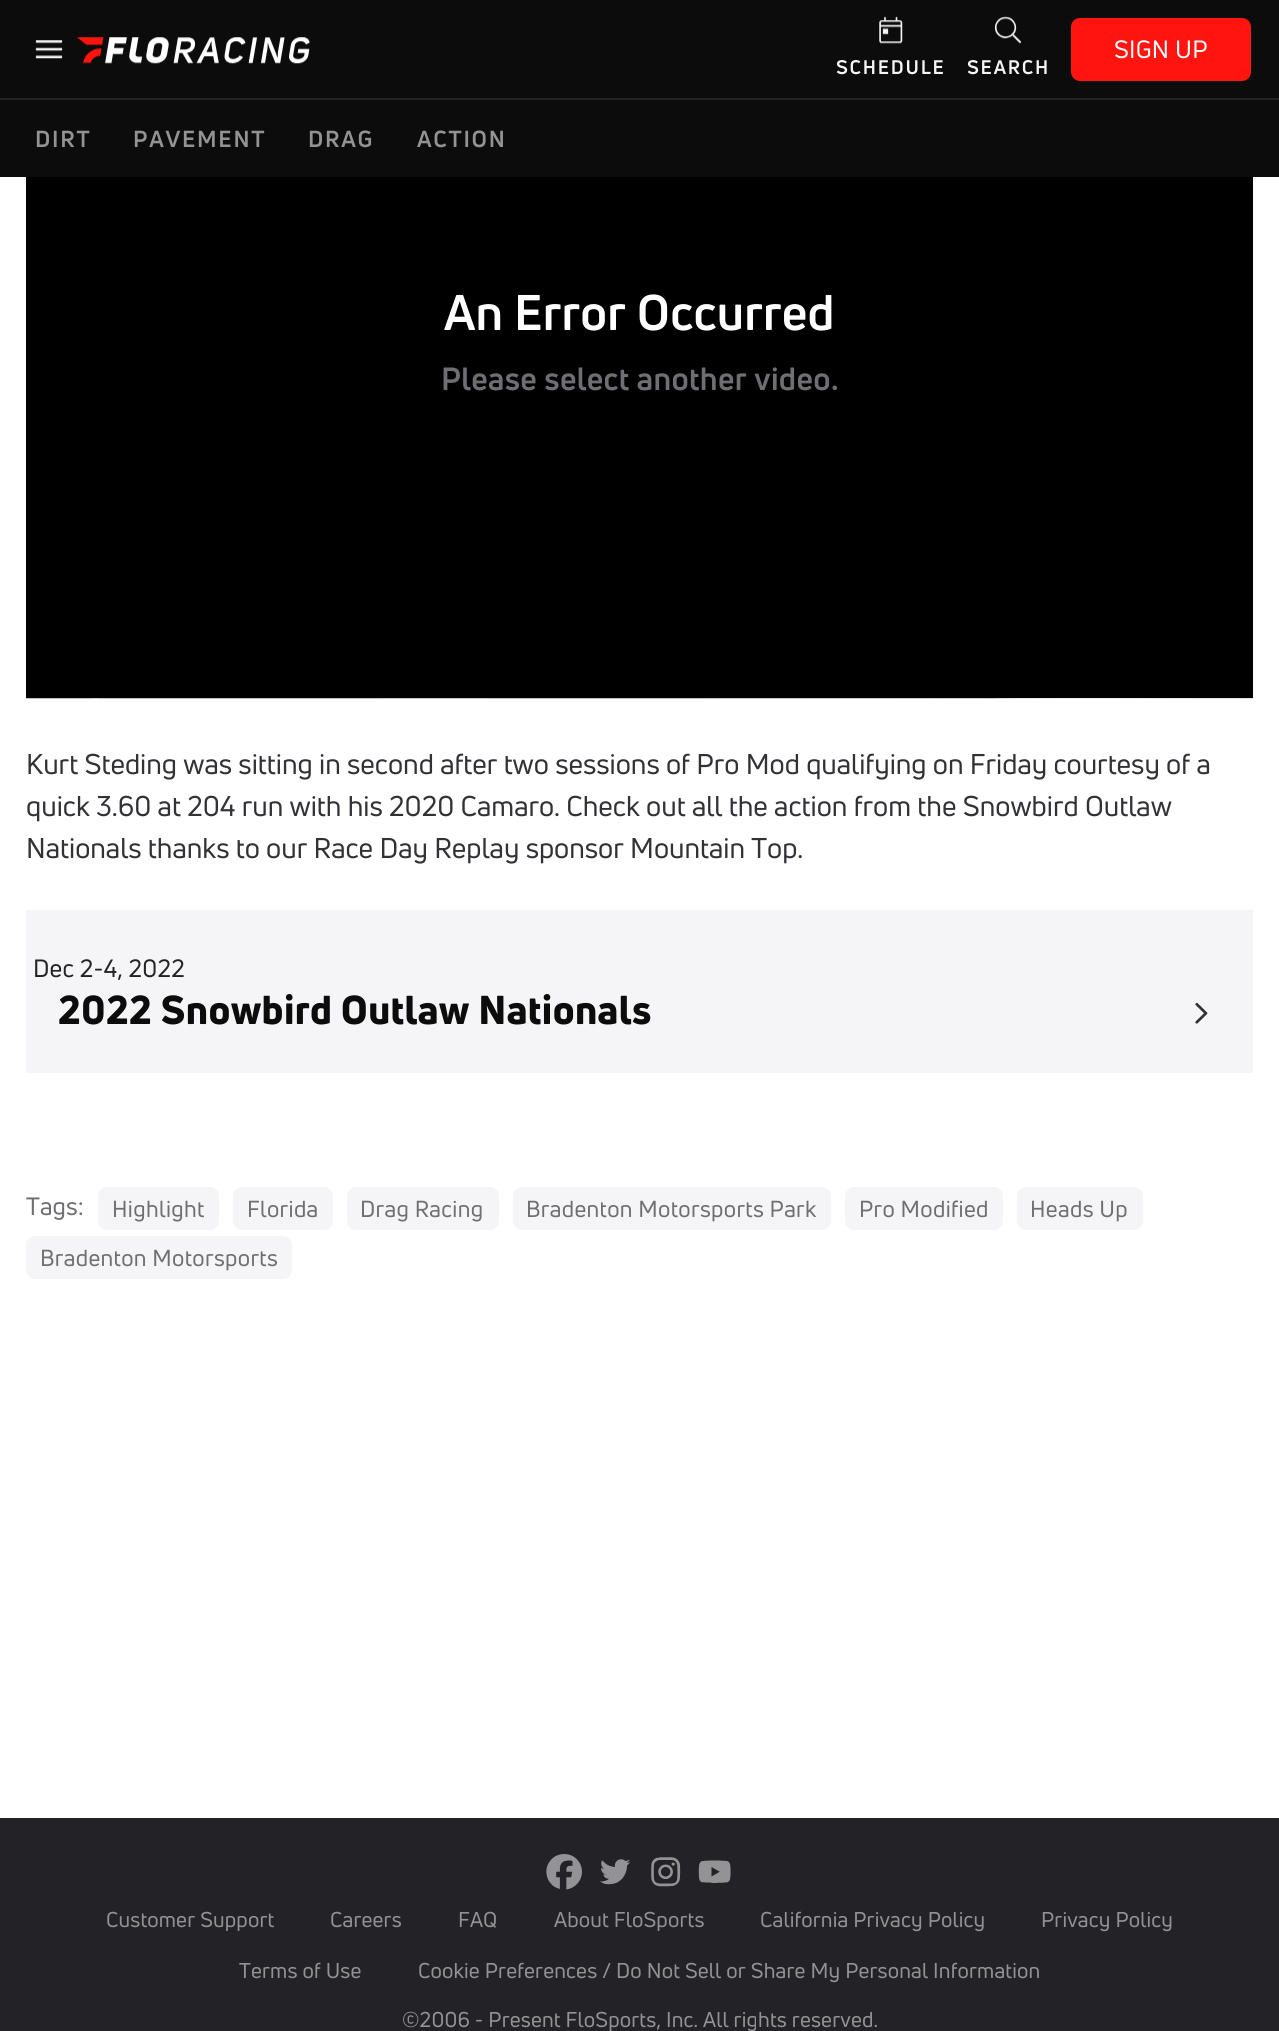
#include <cairo.h>
#include <math.h>
#include <stddef.h>

typedef struct { const char *family; double size; int italic, bold; unsigned color; } style_t;
static cairo_t *ctx;

static void ink(unsigned color) {
    cairo_set_source_rgb(ctx, (color >> 16) / 255.0, (color >> 8 & 255) / 255.0, (color & 255) / 255.0);
}

static void write(double x, double y, const char *s, const style_t *st) {
    cairo_select_font_face(ctx, st->family, st->italic ? CAIRO_FONT_SLANT_ITALIC : CAIRO_FONT_SLANT_NORMAL,
        st->bold ? CAIRO_FONT_WEIGHT_BOLD : CAIRO_FONT_WEIGHT_NORMAL);
    cairo_set_font_size(ctx, st->size);
    ink(st->color);
    cairo_move_to(ctx, x, y);
    cairo_show_text(ctx, s);
}

static void write_spaced(double x, double y, const char *s, double letter, double word) {
    cairo_move_to(ctx, x, y);
    while (*s) {
        char ch[5] = {0};
        int n = 0;
        do ch[n++] = *s++; while ((*s & 0xC0) == 0x80);
        cairo_show_text(ctx, ch);
        cairo_rel_move_to(ctx, letter + word * (*ch == ' '), 0);
    }
}

static void block(double x, double y, double w, double h, unsigned color) {
    ink(color);
    cairo_rectangle(ctx, x, y, w, h);
    cairo_fill(ctx);
}

static void round_path(double x, double y, double w, double h, double r) {
    cairo_new_sub_path(ctx);
    cairo_arc(ctx, x + w - r, y + h - r, r, 0, M_PI / 2);
    cairo_arc(ctx, x + r, y + h - r, r, M_PI / 2, M_PI);
    cairo_arc(ctx, x + r, y + r, r, M_PI, 1.5 * M_PI);
    cairo_arc(ctx, x + w - r, y + r, r, 1.5 * M_PI, 2 * M_PI);
    cairo_close_path(ctx);
}

static void paste(const char *path, double x, double y, double w, double h) {
    cairo_surface_t *image = cairo_image_surface_create_from_png(path);
    cairo_save(ctx);
    cairo_set_source_surface(ctx, image, x, y);
    cairo_rectangle(ctx, x, y, w, h);
    cairo_fill(ctx);
    cairo_restore(ctx);
    cairo_surface_destroy(image);
}

static const style_t s1 = {"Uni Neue", 28, 0, 0, 0x323236};

int main(void) {
    cairo_surface_t *surface = cairo_image_surface_create(CAIRO_FORMAT_RGB24, 1279, 2031);
    ctx = cairo_create(surface);
    cairo_font_options_t *options = cairo_font_options_create();
    cairo_font_options_set_hint_metrics(options, CAIRO_HINT_METRICS_OFF);
    cairo_font_options_set_hint_style(options, CAIRO_HINT_STYLE_NONE);
    cairo_set_font_options(ctx, options);
    cairo_set_miter_limit(ctx, 4);
    ink(0xffffff);
    cairo_paint(ctx);
    block(0, 0, 1279, 177, 0x0c0c0c);
    paste("pic1.png", 35, 40, 28, 19);
    paste("pic2.png", 77, 37, 233, 27);
    ink(0xff140f);
    round_path(1072, 19, 178, 61, 8);
    cairo_fill_preserve(ctx);
    cairo_stroke(ctx);
    cairo_select_font_face(ctx, "Uni Neue", CAIRO_FONT_SLANT_NORMAL, CAIRO_FONT_WEIGHT_NORMAL);
    cairo_set_font_size(ctx, 24.5);
    ink(0xffffff);
    write_spaced(1114, 58, "SIGN UP", 0.25, 0);
    paste("pic3.png", 879, 16, 24, 28);
    cairo_select_font_face(ctx, "Uni Neue", CAIRO_FONT_SLANT_NORMAL, CAIRO_FONT_WEIGHT_BOLD);
    cairo_set_font_size(ctx, 19.25);
    ink(0xf5f5f7);
    write_spaced(836, 74, "SCHEDULE", 1.75, 0);
    paste("pic4.png", 994, 16, 27, 28);
    write_spaced(967, 74, "SEARCH", 1.75, 0);
    block(0, 98, 1279, 2, 0x232327);
    cairo_set_font_size(ctx, 22.75);
    ink(0x939396);
    write_spaced(35, 147, "DIRT", 1.75, 0);
    write_spaced(133, 147, "PAVEMENT", 1.75, 0);
    write_spaced(308, 147, "DRAG", 1.75, 0);
    write_spaced(417, 147, "ACTION", 1.75, 0);
    block(26, 177, 1227, 521, 0x000000);
    cairo_set_font_size(ctx, 49);
    ink(0xffffff);
    write_spaced(444, 330, "An Error Occurred", 0.17, 0);
    cairo_set_font_size(ctx, 31.5);
    ink(0x6f6f73);
    write_spaced(441, 390, "Please select another video.", 0.35, 0);
    paste("pic5.png", 26, 698, 1227, 1);
    write(26, 774, "Kurt Steding was sitting in second after two sessions of Pro Mod qualifying on Friday courtesy of a", &s1);
    write(26, 816, "quick 3.60 at 204 run with his 2020 Camaro. Check out all the action from the Snowbird Outlaw", &s1);
    write(26, 858, "Nationals thanks to our Race Day Replay sponsor Mountain Top.", &s1);
    block(26, 910, 1227, 163, 0xf5f5f7);
    cairo_set_font_size(ctx, 24.5);
    ink(0x232327);
    write_spaced(33, 977, "Dec 2-4, 2022", 0.17, 0);
    cairo_select_font_face(ctx, "Uni Neue Black", CAIRO_FONT_SLANT_NORMAL, CAIRO_FONT_WEIGHT_NORMAL);
    cairo_set_font_size(ctx, 39.5);
    ink(0x0c0c0c);
    write_spaced(58, 1024, "2022 Snowbird Outlaw Nationals", 0.35, 0);
    paste("pic6.png", 1195, 1002, 13, 22);
    cairo_select_font_face(ctx, "Uni Neue", CAIRO_FONT_SLANT_NORMAL, CAIRO_FONT_WEIGHT_NORMAL);
    cairo_set_font_size(ctx, 24.5);
    ink(0x6f6f73);
    write_spaced(26, 1215, "Tags:", 0.17, 0);
    ink(0xf5f5f7);
    round_path(98, 1187, 121, 43, 9);
    cairo_fill(ctx);
    cairo_set_font_size(ctx, 22.75);
    ink(0x6f6f73);
    write_spaced(112, 1217, "Highlight", 0.35, 0);
    ink(0xf5f5f7);
    round_path(233, 1187, 100, 43, 9);
    cairo_fill(ctx);
    ink(0x6f6f73);
    write_spaced(247, 1217, "Florida", 0.35, 0);
    ink(0xf5f5f7);
    round_path(347, 1187, 152, 43, 9);
    cairo_fill(ctx);
    ink(0x6f6f73);
    write_spaced(360, 1217, "Drag Racing", 0.35, 0);
    ink(0xf5f5f7);
    round_path(513, 1187, 318, 43, 9);
    cairo_fill(ctx);
    ink(0x6f6f73);
    write_spaced(526, 1217, "Bradenton Motorsports Park", 0.35, 0);
    ink(0xf5f5f7);
    round_path(845, 1187, 158, 43, 9);
    cairo_fill(ctx);
    ink(0x6f6f73);
    write_spaced(859, 1217, "Pro Modified", 0.35, 0);
    ink(0xf5f5f7);
    round_path(1017, 1187, 126, 43, 9);
    cairo_fill(ctx);
    ink(0x6f6f73);
    write_spaced(1030, 1217, "Heads Up", 0.35, 0);
    ink(0xf5f5f7);
    round_path(26, 1236, 266, 43, 9);
    cairo_fill(ctx);
    ink(0x6f6f73);
    write_spaced(40, 1266, "Bradenton Motorsports", 0.35, 0);
    block(0, 1818, 1279, 213, 0x232327);
    paste("pic7.png", 546, 1854, 36, 36);
    paste("pic8.png", 600, 1859, 30, 26);
    paste("pic9.png", 651, 1857, 30, 30);
    paste("pic10.png", 698, 1860, 33, 23);
    cairo_set_font_size(ctx, 21);
    ink(0x939396);
    write_spaced(106, 1927, "Customer Support", 0.17, 0);
    write_spaced(330, 1927, "Careers", 0.17, 0);
    write_spaced(458, 1927, "FAQ", 0.17, 0);
    write_spaced(554, 1927, "About FloSports", 0.17, 0);
    write_spaced(760, 1927, "California Privacy Policy", 0.17, 0);
    write_spaced(1041, 1927, "Privacy Policy", 0.17, 0);
    write_spaced(239, 1978, "Terms of Use", 0.17, 0);
    write_spaced(418, 1978, "Cookie Preferences / Do Not Sell or Share My Personal Information", 0.17, 0);
    write_spaced(402, 2027, "©2006 - Present FloSports, Inc. All rights reserved.", 0.17, 0);
    cairo_surface_write_to_png(surface, "screenshot.png");
    cairo_font_options_destroy(options);
    cairo_destroy(ctx);
    cairo_surface_destroy(surface);
    return 0;
}
